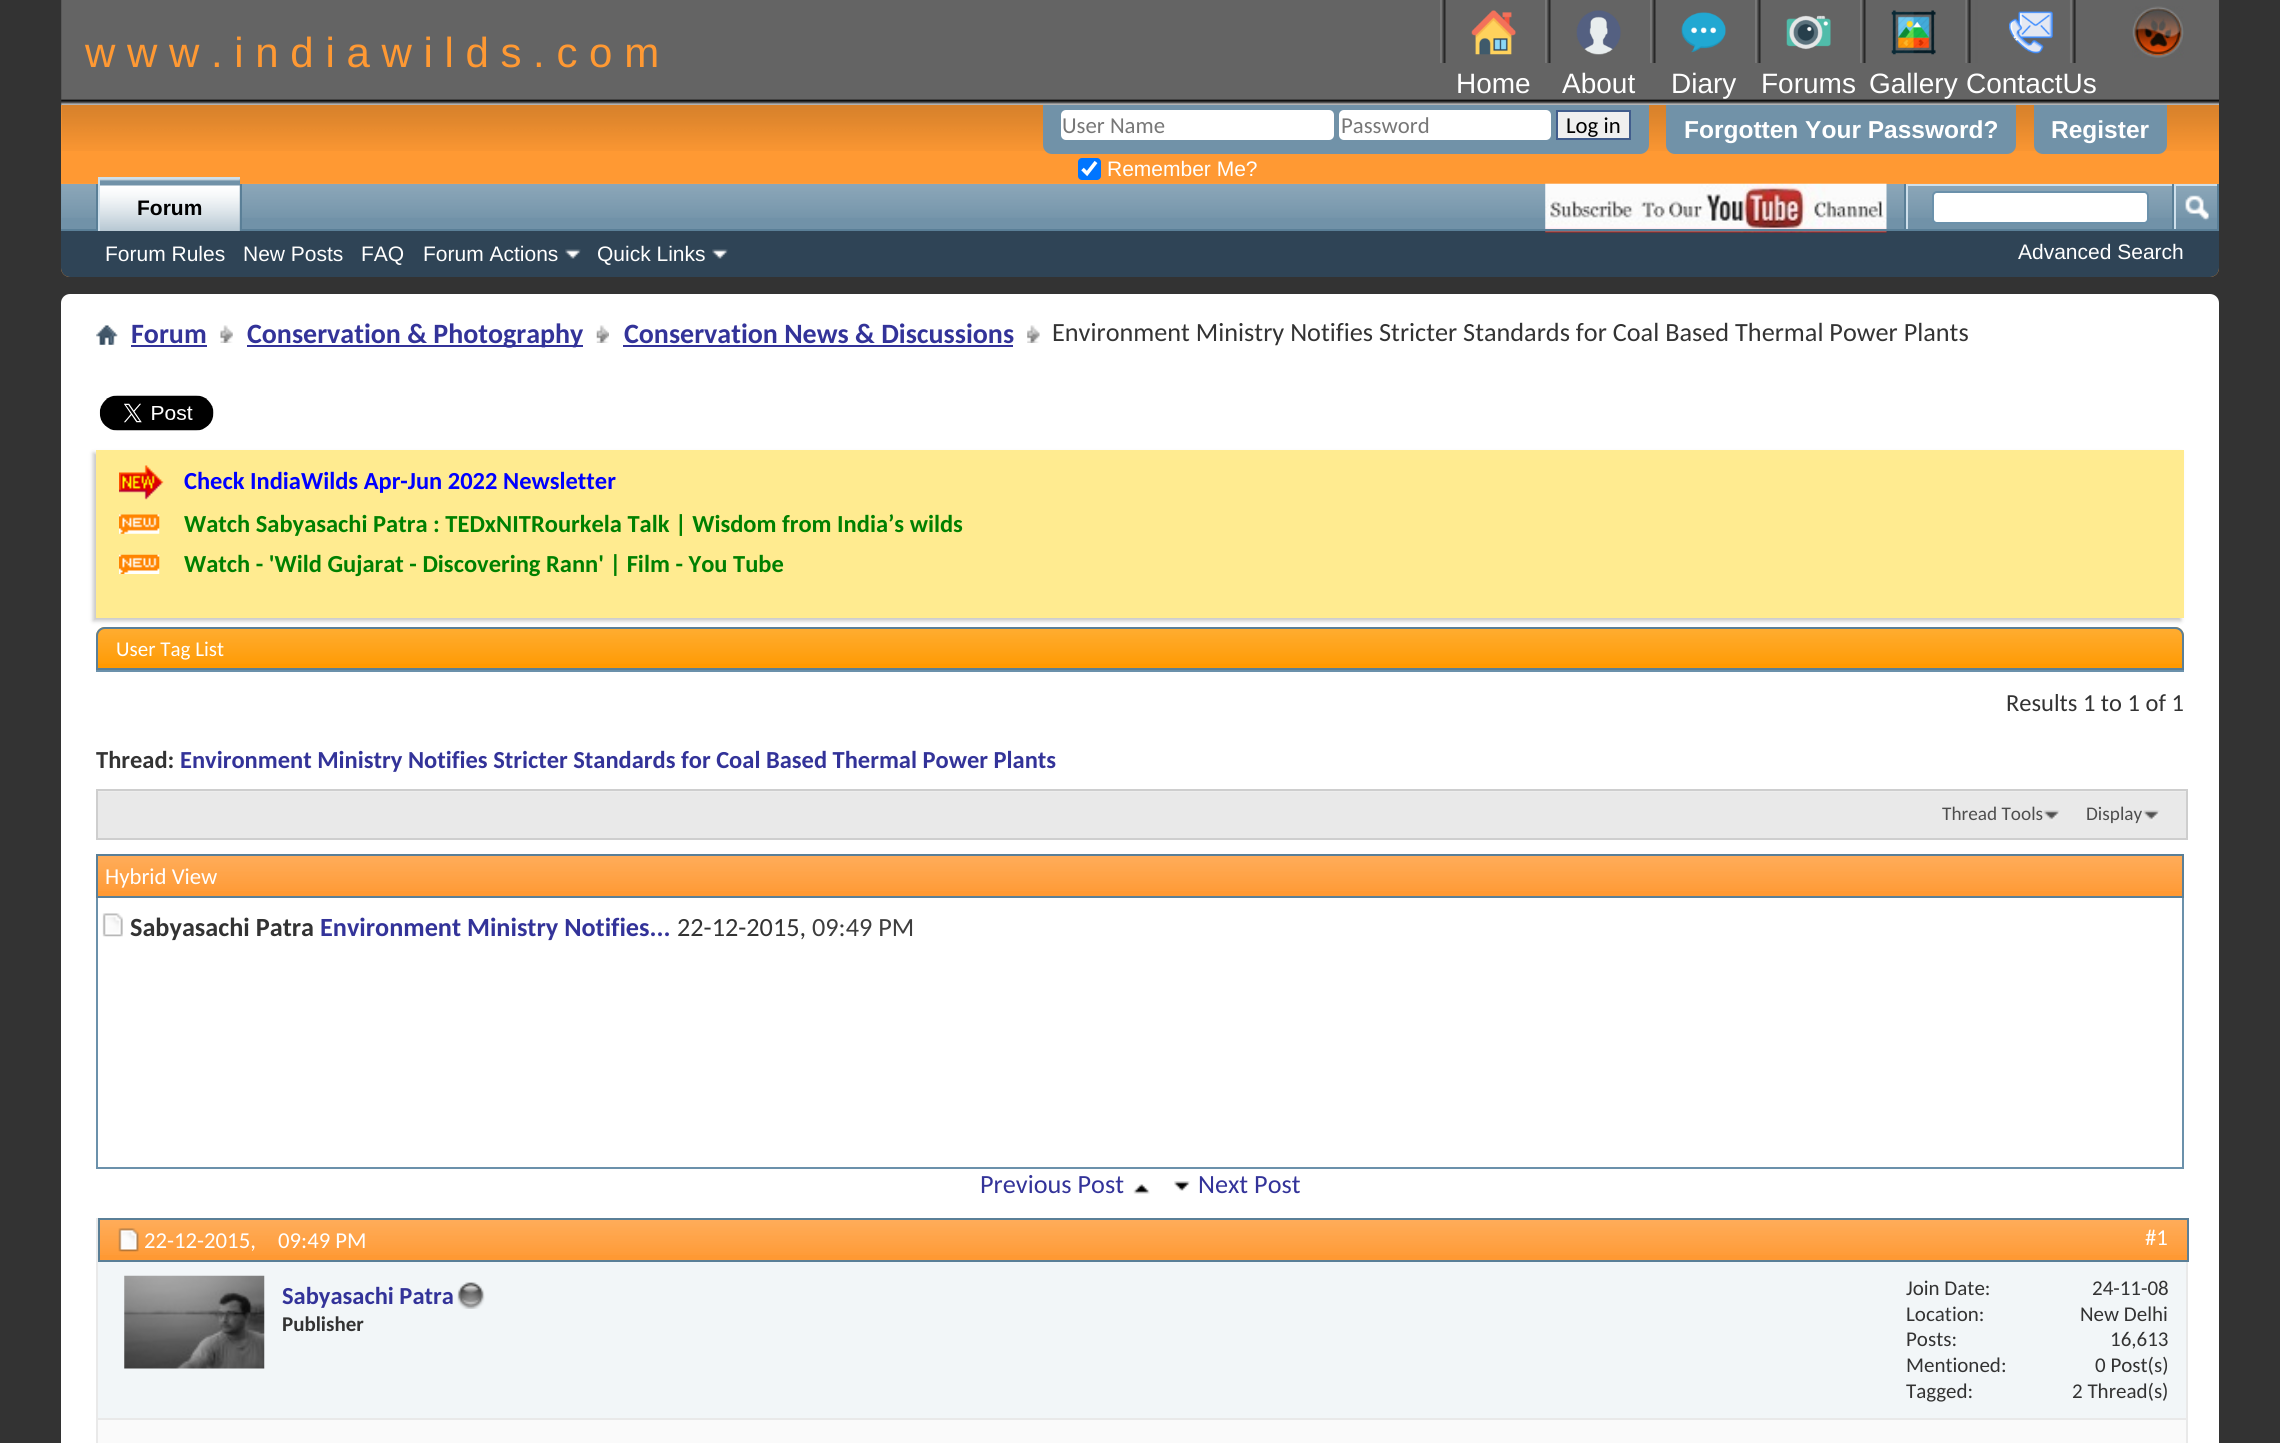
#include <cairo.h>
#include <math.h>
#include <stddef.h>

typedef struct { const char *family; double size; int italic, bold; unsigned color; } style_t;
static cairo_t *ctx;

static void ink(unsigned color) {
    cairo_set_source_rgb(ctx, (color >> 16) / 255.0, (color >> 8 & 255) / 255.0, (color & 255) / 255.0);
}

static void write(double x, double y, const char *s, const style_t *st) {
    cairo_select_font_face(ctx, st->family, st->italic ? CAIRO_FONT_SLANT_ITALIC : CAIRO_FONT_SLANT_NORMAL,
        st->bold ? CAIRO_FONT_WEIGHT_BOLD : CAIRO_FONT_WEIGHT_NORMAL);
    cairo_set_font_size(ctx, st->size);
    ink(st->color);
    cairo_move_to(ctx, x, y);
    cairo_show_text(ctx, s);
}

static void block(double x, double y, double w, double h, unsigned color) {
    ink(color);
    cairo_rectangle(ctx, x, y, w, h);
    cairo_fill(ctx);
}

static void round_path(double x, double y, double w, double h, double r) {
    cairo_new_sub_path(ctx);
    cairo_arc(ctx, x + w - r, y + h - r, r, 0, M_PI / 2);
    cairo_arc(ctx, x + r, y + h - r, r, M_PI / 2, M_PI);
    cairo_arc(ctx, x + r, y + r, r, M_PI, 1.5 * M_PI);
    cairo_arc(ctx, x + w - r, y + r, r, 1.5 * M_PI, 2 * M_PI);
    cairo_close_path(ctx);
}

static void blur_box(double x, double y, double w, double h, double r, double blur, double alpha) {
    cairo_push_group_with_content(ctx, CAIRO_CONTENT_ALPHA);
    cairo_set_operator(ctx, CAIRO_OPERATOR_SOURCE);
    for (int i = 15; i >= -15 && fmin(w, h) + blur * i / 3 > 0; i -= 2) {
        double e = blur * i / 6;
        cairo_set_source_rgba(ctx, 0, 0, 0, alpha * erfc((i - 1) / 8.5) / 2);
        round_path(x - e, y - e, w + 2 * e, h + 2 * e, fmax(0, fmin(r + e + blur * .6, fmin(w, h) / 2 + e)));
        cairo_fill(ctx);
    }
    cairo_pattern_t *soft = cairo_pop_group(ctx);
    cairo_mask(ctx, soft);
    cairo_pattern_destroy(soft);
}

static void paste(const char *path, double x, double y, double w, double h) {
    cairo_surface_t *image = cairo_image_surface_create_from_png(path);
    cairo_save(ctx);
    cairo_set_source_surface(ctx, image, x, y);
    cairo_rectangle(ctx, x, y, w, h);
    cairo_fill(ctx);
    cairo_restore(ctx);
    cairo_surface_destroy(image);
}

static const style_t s1 = {"Liberation Sans", 42, 0, 0, 0xff9933};
static const style_t s2 = {"Liberation Sans", 28, 0, 0, 0xffffff};
static const style_t s3 = {"Carlito", 22.75, 0, 0, 0x777777};
static const style_t s4 = {"Carlito", 22.75, 0, 0, 0x000000};
static const style_t s5 = {"Liberation Sans", 21, 0, 0, 0xffffff};
static const style_t s6 = {"Liberation Sans", 24.5, 0, 1, 0xffffff};
static const style_t s7 = {"Liberation Sans", 21, 0, 1, 0x000000};
static const style_t s8 = {"Carlito", 28, 0, 1, 0x333399};
static const style_t s9 = {"Carlito", 26.25, 0, 0, 0x333333};
static const style_t s10 = {"Carlito", 24.5, 0, 1, 0x0000ff};
static const style_t s11 = {"Carlito", 24.5, 0, 1, 0x008000};
static const style_t s12 = {"Carlito", 21, 0, 0, 0xffffff};
static const style_t s13 = {"Carlito", 24.5, 0, 0, 0x333333};
static const style_t s14 = {"Carlito", 24.5, 0, 1, 0x333333};
static const style_t s15 = {"Carlito", 24.5, 0, 1, 0x333399};
static const style_t s16 = {"Carlito", 19.25, 0, 0, 0x4e4e4e};
static const style_t s17 = {"Carlito", 22.75, 0, 0, 0xffffff};
static const style_t s18 = {"Carlito", 26.25, 0, 1, 0x333333};
static const style_t s19 = {"Carlito", 26.25, 0, 1, 0x333399};
static const style_t s20 = {"Carlito", 26.25, 0, 0, 0x3e3e3e};
static const style_t s21 = {"Carlito", 26.25, 0, 0, 0x333399};
static const style_t s22 = {"Carlito", 21, 0, 1, 0x333333};
static const style_t s23 = {"Carlito", 21, 0, 0, 0x333333};

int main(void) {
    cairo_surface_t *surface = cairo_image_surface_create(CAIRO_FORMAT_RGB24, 2280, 1443);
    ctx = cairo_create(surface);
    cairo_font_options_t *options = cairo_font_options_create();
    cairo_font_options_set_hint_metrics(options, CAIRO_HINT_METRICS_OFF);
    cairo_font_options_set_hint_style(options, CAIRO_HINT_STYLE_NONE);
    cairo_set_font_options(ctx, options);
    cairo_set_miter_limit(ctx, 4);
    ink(0x333333);
    cairo_paint(ctx);
    paste("pic1.png", 61, 0, 2158, 105);
    write(85, 67, "w w w . i n d i a w i l d s . c o m", &s1);
    paste("pic2.png", 1440, 0, 6, 63);
    paste("pic3.png", 1471, 10, 45, 45);
    paste("pic4.png", 1545, 0, 6, 63);
    paste("pic5.png", 1576, 10, 45, 45);
    paste("pic6.png", 1650, 0, 6, 63);
    paste("pic7.png", 1681, 12, 45, 41);
    paste("pic2.png", 1755, 0, 6, 63);
    paste("pic8.png", 1786, 15, 45, 35);
    paste("pic2.png", 1860, 0, 6, 63);
    paste("pic9.png", 1891, 10, 45, 45);
    paste("pic10.png", 1965, 0, 111, 63);
    paste("pic11.png", 2009, 11, 44, 43);
    paste("pic12.png", 2132, 6, 52, 52);
    write(1456, 93, "Home", &s2);
    write(1562, 93, "About", &s2);
    write(1671, 93, "Diary", &s2);
    write(1761, 93, "Forums", &s2);
    write(1869, 93, "Gallery", &s2);
    write(1966, 93, "ContactUs", &s2);
    ink(0xff9933);
    cairo_new_path(ctx);
    cairo_move_to(ctx, 61, 105);
    cairo_line_to(ctx, 2219, 105);
    cairo_line_to(ctx, 2219, 268);
    cairo_curve_to(ctx, 2219, 273, 2215, 277, 2210, 277);
    cairo_line_to(ctx, 70, 277);
    cairo_curve_to(ctx, 65, 277, 61, 273, 61, 268);
    cairo_close_path(ctx);
    cairo_fill(ctx);
    paste("pic13.png", 61, 105, 2158, 46);
    ink(0x7192a8);
    cairo_new_path(ctx);
    cairo_move_to(ctx, 1043, 105);
    cairo_line_to(ctx, 1649, 105);
    cairo_line_to(ctx, 1649, 145);
    cairo_curve_to(ctx, 1649, 150, 1645, 154, 1640, 154);
    cairo_line_to(ctx, 1052, 154);
    cairo_curve_to(ctx, 1047, 154, 1043, 150, 1043, 145);
    cairo_close_path(ctx);
    cairo_fill(ctx);
    ink(0xffffff);
    round_path(1061, 110, 273, 30, 5);
    cairo_fill(ctx);
    write(1062, 133, "User Name", &s3);
    ink(0xffffff);
    round_path(1339, 110, 212, 30, 5);
    cairo_fill(ctx);
    write(1341, 133, "Password", &s3);
    ink(0xefefef);
    cairo_rectangle(ctx, 1557, 111, 73, 28);
    cairo_fill_preserve(ctx);
    ink(0x415d8d);
    cairo_stroke(ctx);
    write(1566, 133, "Log in", &s4);
    ink(0x0075ff);
    round_path(1078, 158, 23, 22, 4);
    cairo_fill(ctx);
    cairo_new_path(ctx);
    cairo_move_to(ctx, 1082.5, 169);
    cairo_line_to(ctx, 1087, 173.5);
    cairo_line_to(ctx, 1096, 162);
    ink(0xffffff);
    cairo_set_line_width(ctx, 3.6);
    cairo_stroke(ctx);
    write(1107, 176, "Remember Me?", &s5);
    ink(0x7192a8);
    cairo_new_path(ctx);
    cairo_move_to(ctx, 1666, 105);
    cairo_line_to(ctx, 2016, 105);
    cairo_line_to(ctx, 2016, 145);
    cairo_curve_to(ctx, 2016, 150, 2012, 154, 2007, 154);
    cairo_line_to(ctx, 1675, 154);
    cairo_curve_to(ctx, 1670, 154, 1666, 150, 1666, 145);
    cairo_close_path(ctx);
    cairo_fill(ctx);
    write(1684, 138, "Forgotten Your Password?", &s6);
    ink(0x7192a8);
    cairo_new_path(ctx);
    cairo_move_to(ctx, 2034, 105);
    cairo_line_to(ctx, 2167, 105);
    cairo_line_to(ctx, 2167, 145);
    cairo_curve_to(ctx, 2167, 150, 2163, 154, 2158, 154);
    cairo_line_to(ctx, 2043, 154);
    cairo_curve_to(ctx, 2038, 154, 2034, 150, 2034, 145);
    cairo_close_path(ctx);
    cairo_fill(ctx);
    write(2051, 138, "Register", &s6);
    ink(0x2f4456);
    cairo_new_path(ctx);
    cairo_move_to(ctx, 61, 184);
    cairo_line_to(ctx, 2219, 184);
    cairo_line_to(ctx, 2219, 268);
    cairo_curve_to(ctx, 2219, 273, 2215, 277, 2210, 277);
    cairo_line_to(ctx, 70, 277);
    cairo_curve_to(ctx, 65, 277, 61, 273, 61, 268);
    cairo_close_path(ctx);
    cairo_fill(ctx);
    block(61, 184, 2156, 45, 0x7192a8);
    paste("pic14.png", 61, 183, 2158, 35);
    block(240, 184, 2, 45, 0x5a7f97);
    block(96, 184, 2, 45, 0x5a7f97);
    paste("pic16.png", 1545, 183, 342, 50);
    block(61, 229, 2158, 2, 0x5a7f97);
    block(100, 179, 140, 52, 0x7192a8);
    paste("pic15.png", 100, 179, 140, 52);
    block(98, 177, 142, 2, 0xcedfeb);
    block(98, 177, 2, 54, 0xcedfeb);
    write(137, 215, "Forum", &s7);
    write(105, 261, "Forum Rules", &s5);
    write(243, 261, "New Posts", &s5);
    write(361, 261, "FAQ", &s5);
    write(423, 261, "Forum Actions", &s5);
    paste("pic17.png", 565, 249, 16, 10);
    write(597, 261, "Quick Links", &s5);
    paste("pic18.png", 712, 249, 16, 10);
    block(1904, 184, 2, 45, 0x5a7f97);
    block(1906, 184, 266, 2, 0xcedfeb);
    block(1906, 184, 2, 45, 0xcedfeb);
    ink(0xffffff);
    round_path(1933, 192, 215, 31, 4);
    cairo_fill_preserve(ctx);
    ink(0x6b91ab);
    cairo_set_line_width(ctx, 2);
    cairo_stroke(ctx);
    block(2217, 184, 2, 45, 0x5a7f97);
    block(2172, 184, 2, 45, 0x5a7f97);
    block(2174, 184, 43, 2, 0xcedfeb);
    block(2174, 184, 2, 45, 0xcedfeb);
    paste("pic19.png", 2185, 195, 24, 26);
    write(2018, 259, "Advanced Search", &s5);
    round_path(61, 294, 2158, 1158, 9);
    cairo_fill(ctx);
    paste("pic20.png", 96, 325, 22, 20);
    paste("pic21.png", 220, 325, 13, 18);
    write(131, 343, "Forum", &s8);
    block(131, 345, 76, 2, 0x333399);
    paste("pic22.png", 596, 325, 13, 18);
    block(247, 345, 336, 2, 0x333399);
    write(247, 343, "Conservation & Photography", &s8);
    paste("pic23.png", 1027, 325, 13, 18);
    write(624, 343, "Conservation News & Discussions", &s8);
    block(623, 345, 390, 2, 0x333399);
    write(1052, 341, "Environment Ministry Notifies Stricter Standards for Coal Based Thermal Power Plants", &s9);
    paste("pic24.png", 99, 395, 115, 36);
    ink(0xc8c8c8);
    blur_box(93, 453, 2088, 168, 0, 2, 1);
    block(96, 450, 2088, 168, 0xffeb90);
    paste("pic25.png", 119, 465, 45, 35);
    write(184, 489, "Check IndiaWilds Apr-Jun 2022 Newsletter", &s10);
    paste("pic26.png", 119, 514, 41, 20);
    write(184, 532, "Watch Sabyasachi Patra : TEDxNITRourkela Talk | Wisdom from India’s wilds", &s11);
    paste("pic27.png", 119, 554, 41, 20);
    write(184, 572, "Watch - 'Wild Gujarat - Discovering Rann' | Film - You Tube", &s11);
    ink(0xff9900);
    cairo_new_path(ctx);
    cairo_move_to(ctx, 105, 627);
    cairo_line_to(ctx, 2175, 627);
    cairo_curve_to(ctx, 2180, 627, 2184, 631, 2184, 636);
    cairo_line_to(ctx, 2184, 670);
    cairo_line_to(ctx, 96, 670);
    cairo_line_to(ctx, 96, 636);
    cairo_curve_to(ctx, 96, 631, 100, 627, 105, 627);
    cairo_close_path(ctx);
    cairo_fill(ctx);
    paste("pic28.png", 96, 628, 2088, 36);
    cairo_new_path(ctx);
    cairo_move_to(ctx, 105, 628);
    cairo_line_to(ctx, 2175, 628);
    cairo_curve_to(ctx, 2179.5, 628, 2183, 631.5, 2183, 636);
    cairo_line_to(ctx, 2183, 669);
    cairo_line_to(ctx, 97, 669);
    cairo_line_to(ctx, 97, 636);
    cairo_curve_to(ctx, 97, 631.5, 100.5, 628, 105, 628);
    cairo_close_path(ctx);
    ink(0x5a7f97);
    cairo_stroke(ctx);
    write(116, 656, "User Tag List", &s12);
    block(96, 670, 2088, 2, 0x6b91ab);
    write(2006, 711, "Results 1 to 1 of 1", &s13);
    write(96, 768, "Thread:", &s14);
    write(180, 768, "Environment Ministry Notifies Stricter Standards for Coal Based Thermal Power Plants", &s15);
    block(98, 792, 2088, 46, 0xe9e9e9);
    block(97, 791, 2090, 1, 0xededed);
    cairo_rectangle(ctx, 97, 790, 2090, 49);
    ink(0xcecece);
    cairo_stroke(ctx);
    paste("pic29.png", 2043, 810, 17, 11);
    write(1942, 820, "Thread Tools", &s16);
    paste("pic30.png", 2143, 810, 17, 11);
    write(2086, 820, "Display", &s16);
    block(98, 856, 2084, 40, 0xff9933);
    paste("pic31.png", 98, 856, 2084, 35);
    cairo_rectangle(ctx, 97, 855, 2086, 42);
    ink(0x5a7f97);
    cairo_stroke(ctx);
    write(105, 884, "Hybrid View", &s17);
    block(2182, 898, 2, 271, 0x6b91ab);
    block(96, 1167, 2088, 2, 0x6b91ab);
    block(96, 898, 2, 271, 0x6b91ab);
    paste("pic32.png", 102, 913, 21, 24);
    write(130, 936, "Sabyasachi Patra", &s18);
    write(320, 936, "Environment Ministry Notifies...", &s19);
    write(677, 936, "22-12-2015,", &s9);
    write(812, 936, "09:49 PM", &s20);
    write(980, 1193, "Previous Post", &s21);
    paste("pic33.png", 1133, 1184, 17, 10);
    paste("pic34.png", 1174, 1181, 16, 10);
    write(1198, 1193, "Next Post", &s21);
    cairo_rectangle(ctx, 97, 1219, 2090, 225);
    ink(0xe9e9e9);
    cairo_stroke(ctx);
    block(100, 1220, 2087, 40, 0xff9933);
    paste("pic35.png", 100, 1220, 2087, 35);
    cairo_rectangle(ctx, 99, 1219, 2089, 42);
    ink(0x5a7f97);
    cairo_stroke(ctx);
    paste("pic36.png", 118, 1228, 21, 24);
    write(144, 1248, "22-12-2015,", &s17);
    write(278, 1248, "09:49 PM", &s17);
    write(2145, 1245, "#1", &s17);
    block(98, 1262, 2088, 156, 0xf2f6f8);
    block(98, 1418, 2088, 2, 0xe9e9e9);
    paste("pic37.png", 124, 1275, 141, 94);
    write(282, 1304, "Sabyasachi Patra", &s15);
    paste("pic38.png", 457, 1282, 28, 27);
    write(282, 1331, "Publisher", &s22);
    write(1906, 1295, "Join Date:", &s23);
    write(2092, 1295, "24-11-08", &s23);
    write(1906, 1321, "Location:", &s23);
    write(2080, 1321, "New Delhi", &s23);
    write(1906, 1346, "Posts:", &s23);
    write(2110, 1346, "16,613", &s23);
    write(1906, 1372, "Mentioned:", &s23);
    write(2095, 1372, "0 Post(s)", &s23);
    write(1906, 1398, "Tagged:", &s23);
    write(2072, 1398, "2 Thread(s)", &s23);
    block(98, 1420, 2088, 23, 0xfafafa);
    cairo_surface_write_to_png(surface, "screenshot.png");
    cairo_font_options_destroy(options);
    cairo_destroy(ctx);
    cairo_surface_destroy(surface);
    return 0;
}
